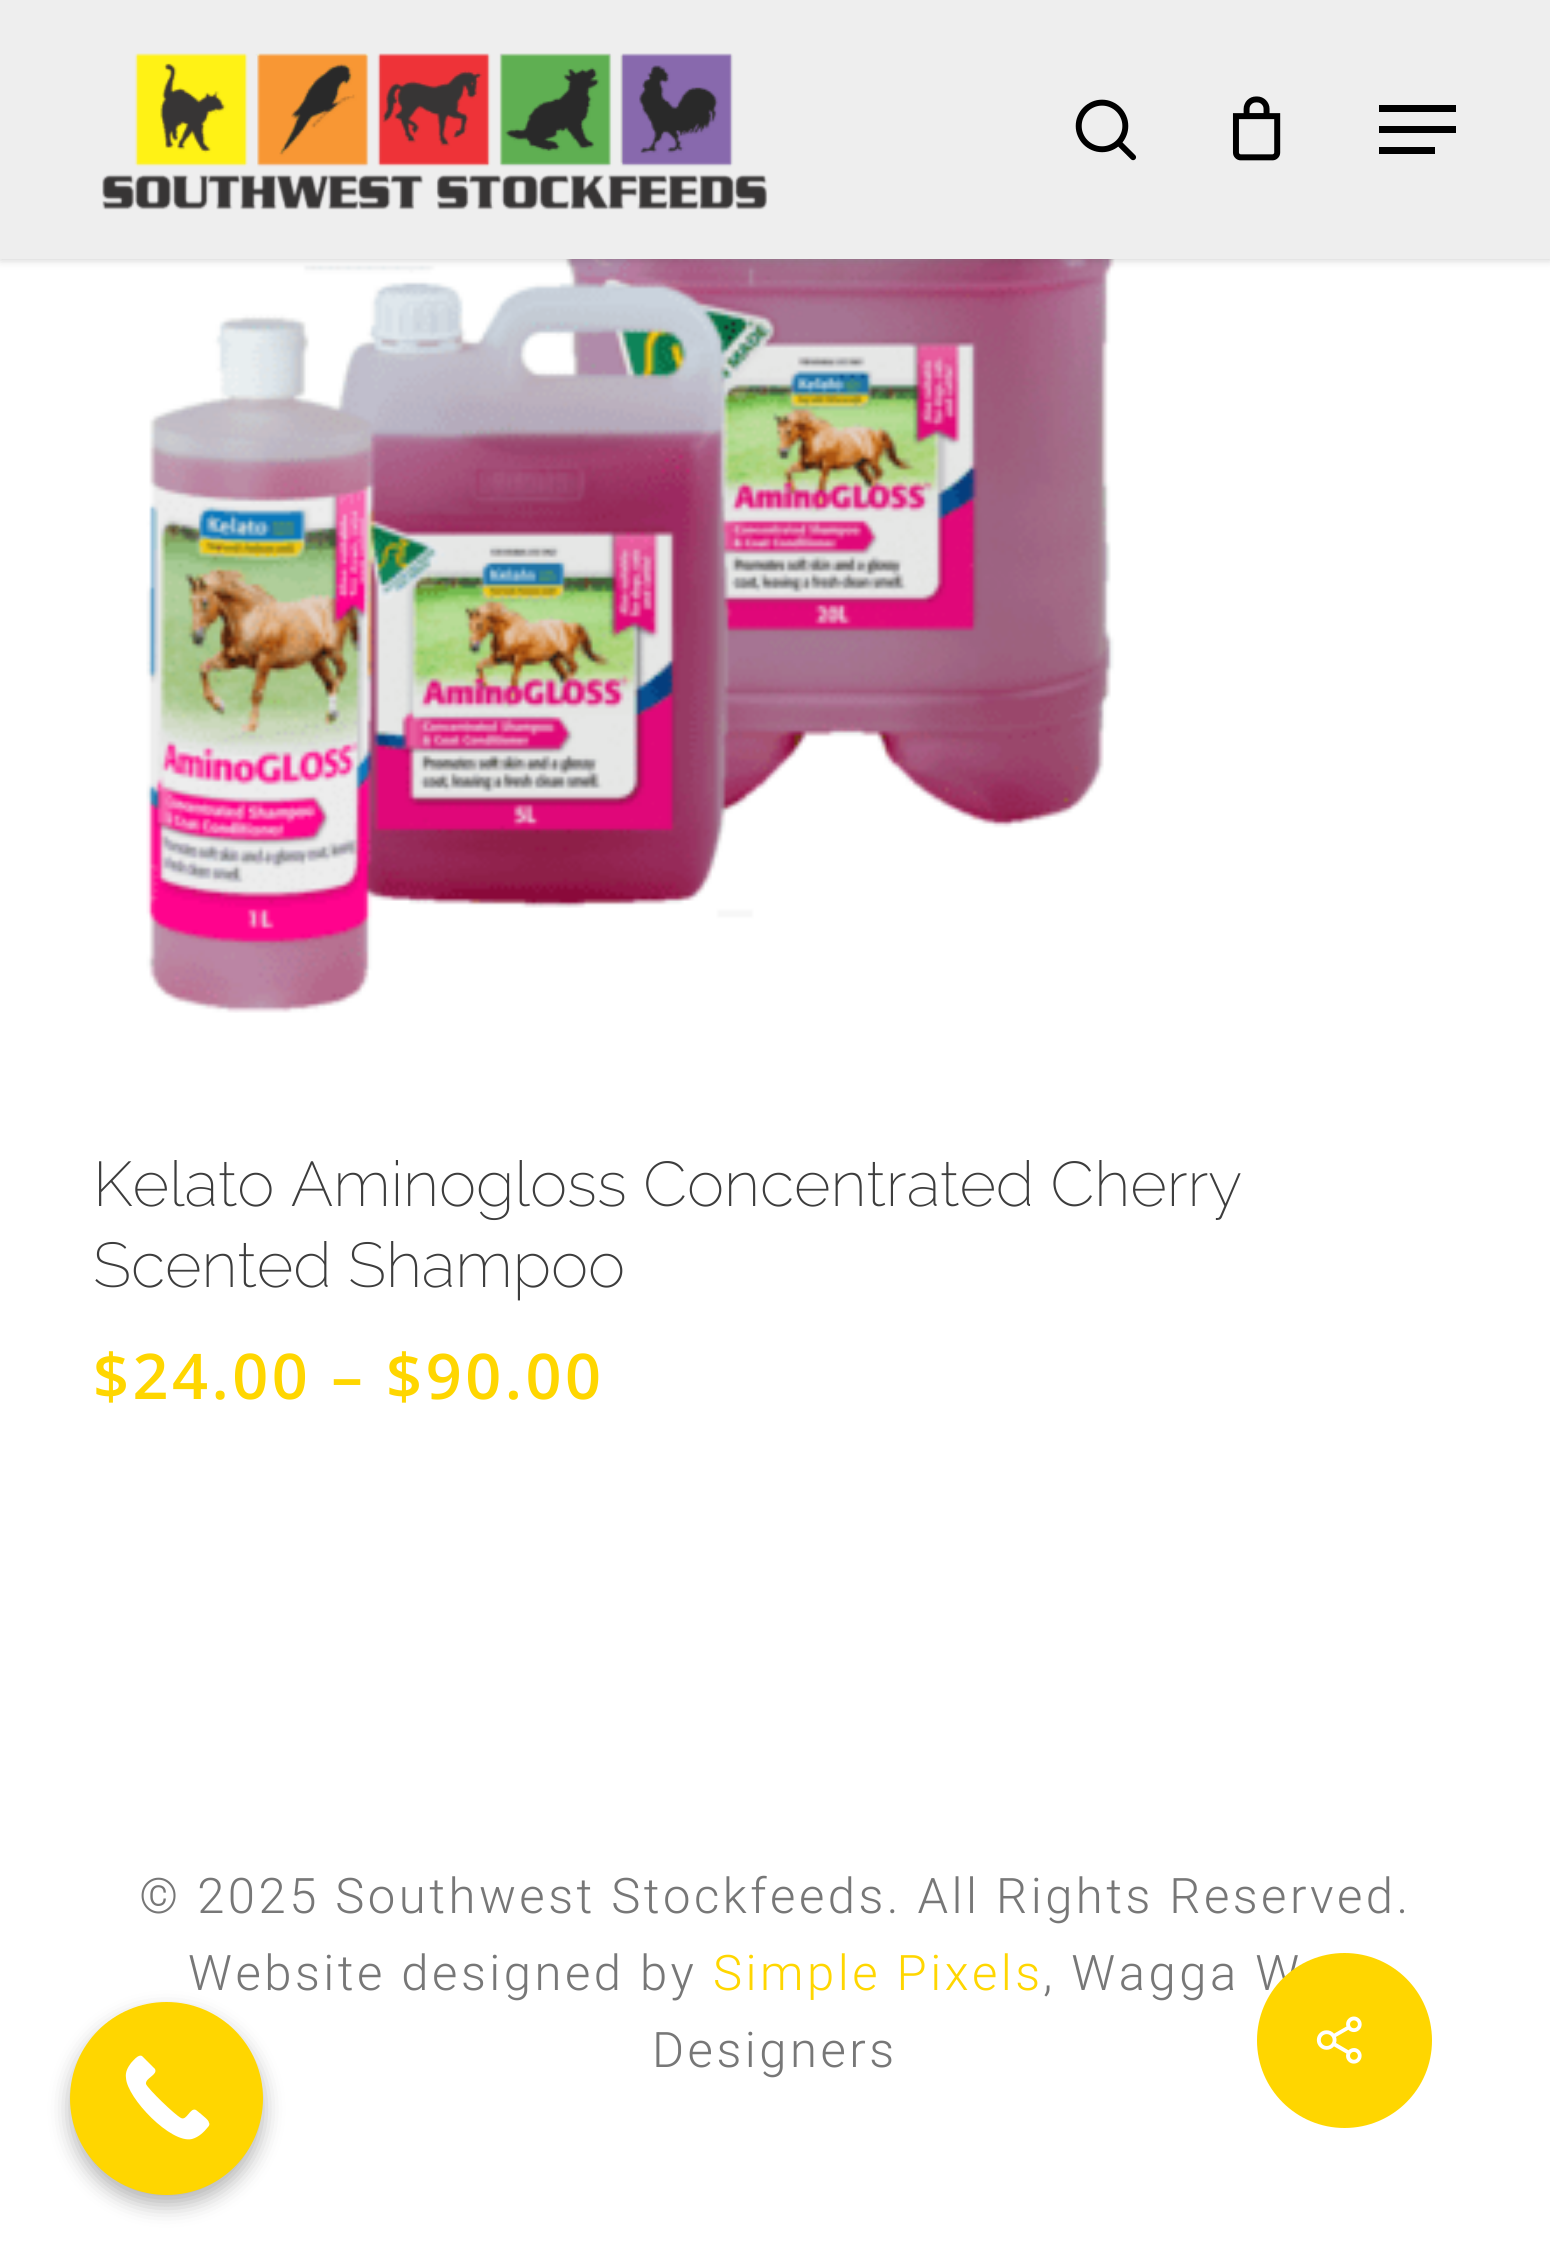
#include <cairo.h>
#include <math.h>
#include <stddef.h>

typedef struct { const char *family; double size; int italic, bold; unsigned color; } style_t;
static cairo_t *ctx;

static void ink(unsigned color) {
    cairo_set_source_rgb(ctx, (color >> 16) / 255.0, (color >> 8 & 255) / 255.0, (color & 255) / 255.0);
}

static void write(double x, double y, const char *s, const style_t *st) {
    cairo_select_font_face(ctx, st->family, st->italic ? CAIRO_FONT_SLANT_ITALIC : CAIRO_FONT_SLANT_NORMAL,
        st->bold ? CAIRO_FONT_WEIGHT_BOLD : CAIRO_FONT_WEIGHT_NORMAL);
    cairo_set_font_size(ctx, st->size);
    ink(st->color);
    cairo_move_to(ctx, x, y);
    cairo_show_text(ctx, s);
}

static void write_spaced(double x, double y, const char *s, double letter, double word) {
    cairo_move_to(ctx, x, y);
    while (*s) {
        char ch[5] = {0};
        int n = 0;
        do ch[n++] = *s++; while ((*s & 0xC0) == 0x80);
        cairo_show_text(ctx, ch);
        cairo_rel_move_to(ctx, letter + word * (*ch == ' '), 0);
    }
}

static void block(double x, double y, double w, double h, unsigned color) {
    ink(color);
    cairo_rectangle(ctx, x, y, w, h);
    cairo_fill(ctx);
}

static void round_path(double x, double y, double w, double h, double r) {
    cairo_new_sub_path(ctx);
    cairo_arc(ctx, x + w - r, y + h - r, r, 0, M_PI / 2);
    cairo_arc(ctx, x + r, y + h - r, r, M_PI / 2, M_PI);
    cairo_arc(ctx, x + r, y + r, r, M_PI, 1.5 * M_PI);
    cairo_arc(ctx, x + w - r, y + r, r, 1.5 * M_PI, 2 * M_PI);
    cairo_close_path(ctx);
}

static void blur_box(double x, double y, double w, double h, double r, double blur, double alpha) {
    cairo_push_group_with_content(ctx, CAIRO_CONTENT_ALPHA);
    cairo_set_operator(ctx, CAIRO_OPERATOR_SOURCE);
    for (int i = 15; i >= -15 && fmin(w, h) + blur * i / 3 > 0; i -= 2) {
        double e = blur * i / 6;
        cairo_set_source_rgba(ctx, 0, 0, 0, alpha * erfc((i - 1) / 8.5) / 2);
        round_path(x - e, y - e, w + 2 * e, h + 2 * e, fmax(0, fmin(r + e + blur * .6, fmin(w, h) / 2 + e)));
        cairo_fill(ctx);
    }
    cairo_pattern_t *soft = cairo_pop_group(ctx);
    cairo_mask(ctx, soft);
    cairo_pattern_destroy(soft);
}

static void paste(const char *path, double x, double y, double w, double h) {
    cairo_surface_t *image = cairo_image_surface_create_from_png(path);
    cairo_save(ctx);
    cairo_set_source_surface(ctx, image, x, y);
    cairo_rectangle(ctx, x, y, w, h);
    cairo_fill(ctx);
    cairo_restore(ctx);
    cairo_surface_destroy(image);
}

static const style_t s1 = {"Raleway ExtraLight", 63, 0, 0, 0x3d3d3d};

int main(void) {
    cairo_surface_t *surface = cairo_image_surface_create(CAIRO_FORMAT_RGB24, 1550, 2244);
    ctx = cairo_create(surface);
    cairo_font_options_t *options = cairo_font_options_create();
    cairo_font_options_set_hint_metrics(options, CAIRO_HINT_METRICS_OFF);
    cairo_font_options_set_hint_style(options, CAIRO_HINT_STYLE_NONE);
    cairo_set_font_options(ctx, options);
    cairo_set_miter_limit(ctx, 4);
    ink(0xffffff);
    cairo_paint(ctx);
    paste("pic4.png", 146, 259, 970, 754);
    ink(0x000000);
    blur_box(0, 0, 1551, 259, 0, 5, 0.22);
    block(0, 0, 1550, 259, 0xeeeeee);
    paste("pic1.png", 102, 53, 666, 157);
    paste("pic2.png", 1075, 99, 62, 62);
    paste("pic3.png", 1232, 96, 49, 65);
    block(1379, 105, 77, 7, 0x000000);
    block(1379, 147, 56, 7, 0x000000);
    block(1379, 126, 77, 7, 0x000000);
    write(93, 1206, "Kelato Aminogloss Concentrated Cherry", &s1);
    write(93, 1287, "Scented Shampoo", &s1);
    cairo_select_font_face(ctx, "Open Sans SemiBold", CAIRO_FONT_SLANT_NORMAL, CAIRO_FONT_WEIGHT_NORMAL);
    ink(0xffd600);
    write_spaced(93, 1399, "$24.00 – $90.00", 3.5, 0);
    cairo_select_font_face(ctx, "Roboto Light", CAIRO_FONT_SLANT_NORMAL, CAIRO_FONT_WEIGHT_NORMAL);
    cairo_set_font_size(ctx, 49);
    ink(0x777777);
    write_spaced(139, 1913, "© 2025 Southwest Stockfeeds. All Rights Reserved.", 3.5, 0);
    write_spaced(188, 1990, "Website designed by", 3.5, 0);
    ink(0xffd600);
    write_spaced(713, 1990, "Simple Pixels", 3.5, 0);
    ink(0x777777);
    write_spaced(1043, 1990, ", Wagga W", 3.5, 0);
    write_spaced(652, 2067, "Designers", 3.5, 0);
    ink(0xffd600);
    cairo_new_path(ctx);
    cairo_arc(ctx, 1344.5, 2040.5, 87.5, 0, 2 * M_PI);
    cairo_fill(ctx);
    paste("pic5.png", 1316, 2016, 46, 48);
    ink(0x000000);
    blur_box(70, 2013, 193, 192, 96, 10.5, 0.3);
    ink(0xffd600);
    cairo_arc(ctx, 166.5, 2098.5, 96.5, 0, 2 * M_PI);
    cairo_fill(ctx);
    ink(0xffffff);
    cairo_new_path(ctx);
    cairo_move_to(ctx, 208, 2127);
    cairo_curve_to(ctx, 204, 2132, 199, 2137, 192, 2139);
    cairo_curve_to(ctx, 171, 2144, 127, 2098, 126, 2078);
    cairo_curve_to(ctx, 125, 2072, 128, 2067, 131, 2063);
    cairo_curve_to(ctx, 133, 2061, 138, 2054, 142, 2056);
    cairo_line_to(ctx, 155, 2069);
    cairo_curve_to(ctx, 158, 2075, 145, 2078, 146, 2084);
    cairo_curve_to(ctx, 148, 2089, 175, 2115, 181, 2118);
    cairo_curve_to(ctx, 187, 2121, 190, 2107, 196, 2110);
    cairo_line_to(ctx, 201, 2114);
    cairo_curve_to(ctx, 203, 2116, 209, 2120, 209, 2123);
    cairo_curve_to(ctx, 210, 2124, 209, 2126, 208, 2127);
    cairo_close_path(ctx);
    cairo_fill(ctx);
    cairo_surface_write_to_png(surface, "screenshot.png");
    cairo_font_options_destroy(options);
    cairo_destroy(ctx);
    cairo_surface_destroy(surface);
    return 0;
}
